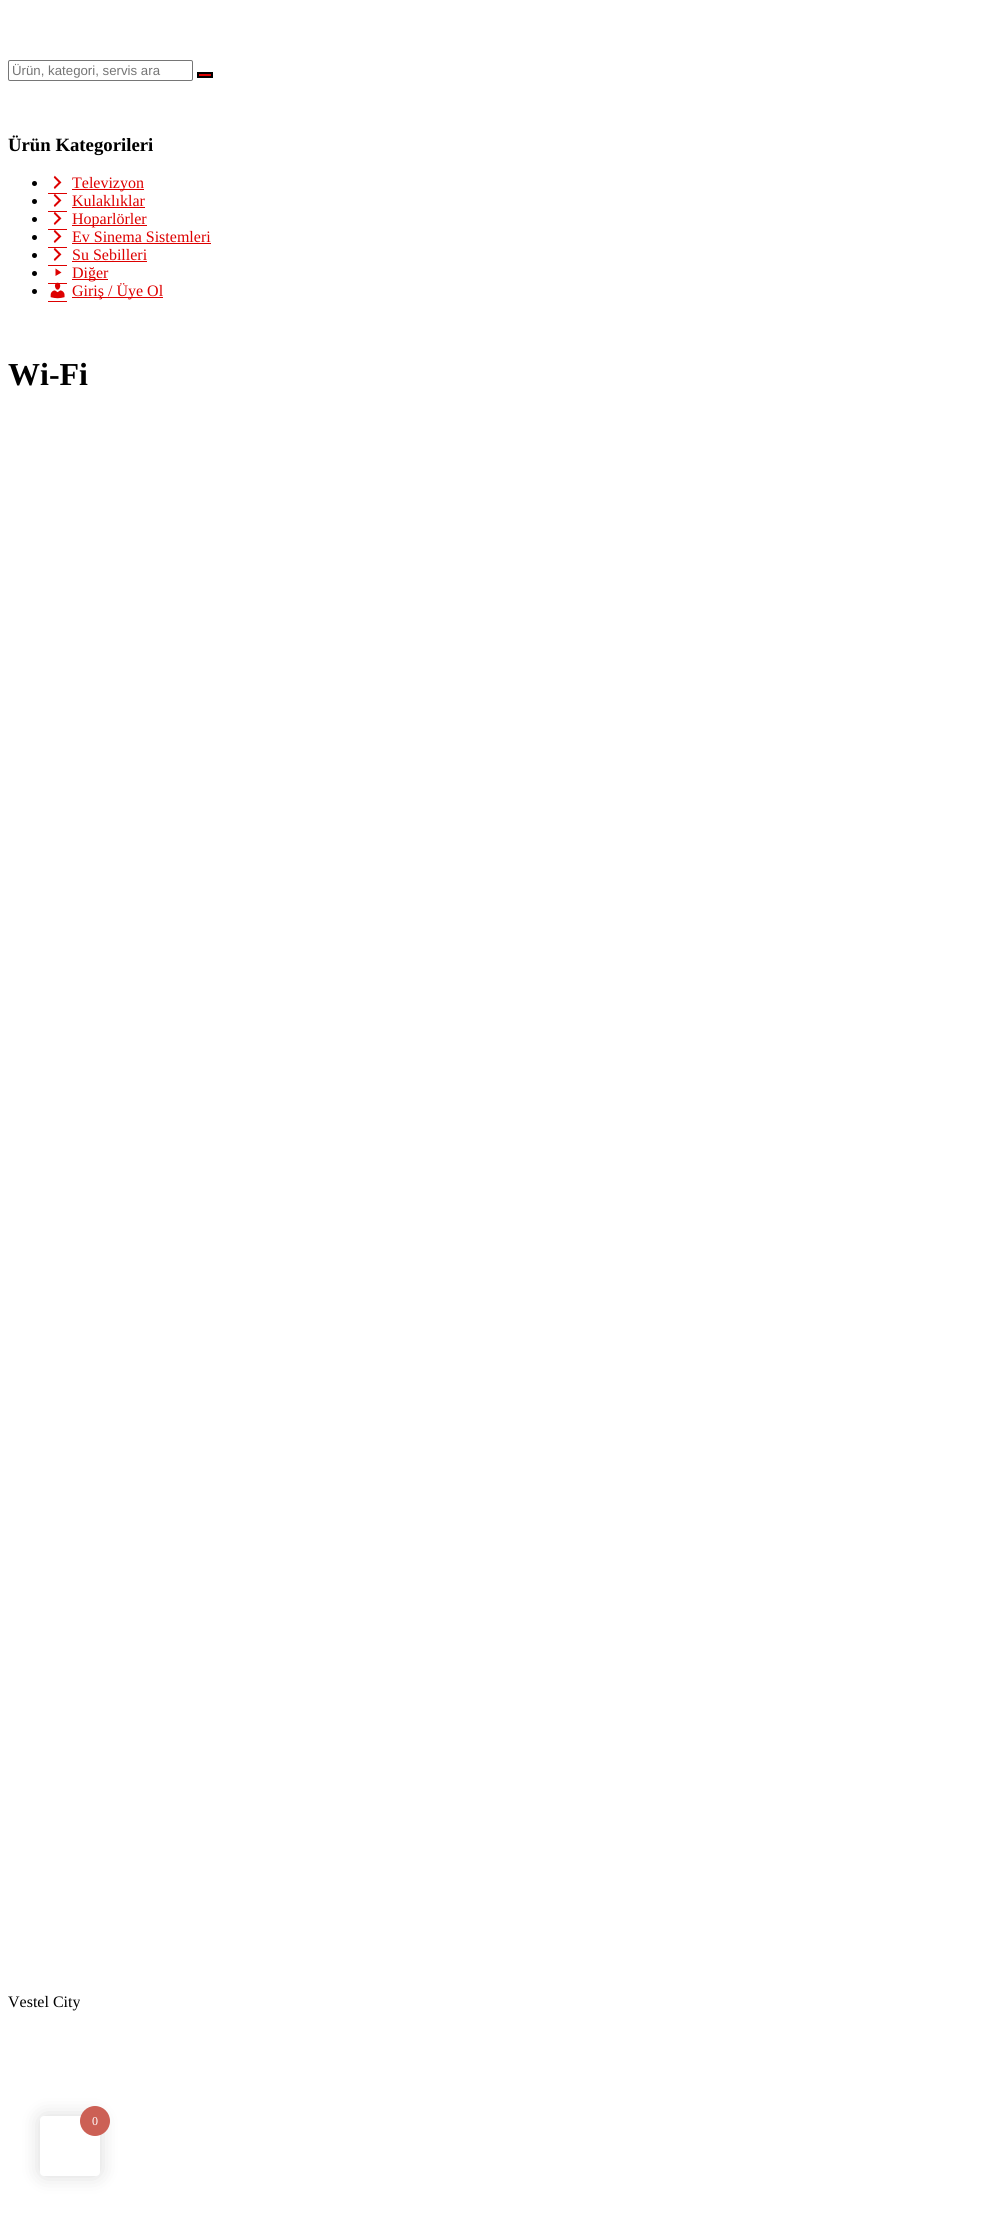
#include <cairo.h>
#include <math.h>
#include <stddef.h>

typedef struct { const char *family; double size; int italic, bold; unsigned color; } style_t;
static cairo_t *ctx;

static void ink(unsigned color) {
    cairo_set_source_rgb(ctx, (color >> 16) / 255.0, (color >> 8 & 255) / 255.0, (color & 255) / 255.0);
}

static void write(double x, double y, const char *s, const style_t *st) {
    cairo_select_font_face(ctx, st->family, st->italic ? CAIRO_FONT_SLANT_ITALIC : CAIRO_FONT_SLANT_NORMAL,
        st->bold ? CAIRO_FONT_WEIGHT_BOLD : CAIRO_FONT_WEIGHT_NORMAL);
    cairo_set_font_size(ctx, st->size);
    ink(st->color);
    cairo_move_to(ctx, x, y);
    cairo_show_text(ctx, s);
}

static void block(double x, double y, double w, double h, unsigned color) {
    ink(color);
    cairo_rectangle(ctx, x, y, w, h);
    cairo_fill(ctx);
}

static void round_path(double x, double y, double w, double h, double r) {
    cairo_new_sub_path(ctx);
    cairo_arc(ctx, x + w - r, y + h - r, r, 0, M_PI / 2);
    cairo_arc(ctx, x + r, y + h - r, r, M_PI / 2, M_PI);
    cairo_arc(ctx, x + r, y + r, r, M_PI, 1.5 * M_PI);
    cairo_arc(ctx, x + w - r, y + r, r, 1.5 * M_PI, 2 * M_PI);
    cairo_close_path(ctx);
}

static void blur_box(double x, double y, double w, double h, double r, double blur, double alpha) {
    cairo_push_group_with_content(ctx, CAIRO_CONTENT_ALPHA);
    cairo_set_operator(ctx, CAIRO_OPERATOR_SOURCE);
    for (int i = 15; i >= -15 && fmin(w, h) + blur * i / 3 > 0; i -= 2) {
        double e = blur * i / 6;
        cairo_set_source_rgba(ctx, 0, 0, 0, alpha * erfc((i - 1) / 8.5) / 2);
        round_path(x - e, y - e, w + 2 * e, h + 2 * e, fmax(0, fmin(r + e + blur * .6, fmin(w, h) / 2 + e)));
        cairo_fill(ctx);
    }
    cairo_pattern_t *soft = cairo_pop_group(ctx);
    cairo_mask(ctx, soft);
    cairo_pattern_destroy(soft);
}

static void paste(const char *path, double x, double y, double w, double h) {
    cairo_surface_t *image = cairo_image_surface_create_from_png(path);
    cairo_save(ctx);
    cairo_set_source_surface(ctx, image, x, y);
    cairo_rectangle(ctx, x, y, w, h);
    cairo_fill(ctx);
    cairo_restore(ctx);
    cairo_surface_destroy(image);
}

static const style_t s1 = {"Liberation Sans", 13.25, 0, 0, 0x757575};
static const style_t s2 = {"Liberation Serif", 18.75, 0, 1, 0x000000};
static const style_t s3 = {"Liberation Serif", 16, 0, 0, 0xdd0000};
static const style_t s4 = {"Liberation Serif", 32, 0, 1, 0x000000};
static const style_t s5 = {"Liberation Serif", 16, 0, 0, 0x000000};
static const style_t s6 = {"Liberation Serif", 12, 0, 0, 0xffffff};

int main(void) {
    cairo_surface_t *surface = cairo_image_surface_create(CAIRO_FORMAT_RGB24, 1001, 2216);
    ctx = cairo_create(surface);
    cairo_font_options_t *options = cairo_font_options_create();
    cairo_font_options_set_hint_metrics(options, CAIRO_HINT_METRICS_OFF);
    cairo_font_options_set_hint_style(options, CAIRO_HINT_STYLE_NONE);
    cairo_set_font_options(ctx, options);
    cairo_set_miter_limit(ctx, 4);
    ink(0xffffff);
    cairo_paint(ctx);
    round_path(8.5, 60.5, 184, 20, 1.5);
    ink(0x767676);
    cairo_set_line_width(ctx, 1);
    cairo_stroke(ctx);
    write(12, 75, "Ürün, kategori, servis ara", &s1);
    ink(0xdd0000);
    cairo_rectangle(ctx, 198, 73, 14, 4);
    cairo_fill_preserve(ctx);
    ink(0x000000);
    cairo_set_line_width(ctx, 2);
    cairo_stroke(ctx);
    write(8, 151, "Ürün Kategorileri", &s2);
    cairo_new_path(ctx);
    cairo_arc(ctx, 34.5, 183.5, 2.5, 0, 2 * M_PI);
    cairo_fill(ctx);
    paste("pic1.png", 53, 175, 9, 14);
    block(48, 193, 19, 1, 0xdd0000);
    block(72, 189, 72, 1, 0xdd0000);
    write(72, 188, "Televizyon", &s3);
    ink(0x000000);
    cairo_new_path(ctx);
    cairo_arc(ctx, 34.5, 201.5, 2.5, 0, 2 * M_PI);
    cairo_fill(ctx);
    paste("pic2.png", 53, 194, 9, 13);
    block(48, 211, 19, 1, 0xdd0000);
    write(72, 206, "Kulaklıklar", &s3);
    block(72, 207, 73, 1, 0xdd0000);
    ink(0x000000);
    cairo_new_path(ctx);
    cairo_arc(ctx, 34.5, 219.5, 2.5, 0, 2 * M_PI);
    cairo_fill(ctx);
    paste("pic2.png", 53, 212, 9, 13);
    block(48, 229, 19, 1, 0xdd0000);
    block(72, 225, 75, 1, 0xdd0000);
    write(72, 224, "Hoparlörler", &s3);
    ink(0x000000);
    cairo_new_path(ctx);
    cairo_arc(ctx, 34.5, 237.5, 2.5, 0, 2 * M_PI);
    cairo_fill(ctx);
    paste("pic2.png", 53, 230, 9, 13);
    block(48, 247, 19, 1, 0xdd0000);
    write(72, 242, "Ev Sinema Sistemleri", &s3);
    block(72, 243, 139, 1, 0xdd0000);
    ink(0x000000);
    cairo_new_path(ctx);
    cairo_arc(ctx, 34.5, 255.5, 2.5, 0, 2 * M_PI);
    cairo_fill(ctx);
    paste("pic2.png", 53, 248, 9, 13);
    block(48, 265, 19, 1, 0xdd0000);
    write(72, 260, "Su Sebilleri", &s3);
    block(72, 261, 75, 1, 0xdd0000);
    ink(0x000000);
    cairo_new_path(ctx);
    cairo_arc(ctx, 34.5, 273.5, 2.5, 0, 2 * M_PI);
    cairo_fill(ctx);
    ink(0xdd0000);
    cairo_new_path(ctx);
    cairo_move_to(ctx, 55.5, 268.5);
    cairo_line_to(ctx, 61.5, 272.5);
    cairo_line_to(ctx, 55.5, 276);
    cairo_close_path(ctx);
    cairo_fill(ctx);
    block(48, 283, 19, 1, 0xdd0000);
    block(72, 279, 36, 1, 0xdd0000);
    write(72, 278, "Diğer", &s3);
    ink(0x000000);
    cairo_new_path(ctx);
    cairo_arc(ctx, 34.5, 291.5, 2.5, 0, 2 * M_PI);
    cairo_fill(ctx);
    paste("pic3.png", 50, 282, 15, 17);
    block(48, 301, 19, 1, 0xdd0000);
    block(72, 297, 91, 1, 0xdd0000);
    write(72, 296, "Giriş / Üye Ol", &s3);
    write(8, 385, "Wi-Fi", &s4);
    write(8, 2007, "Vestel City", &s5);
    ink(0x000000);
    blur_box(40, 2116, 60, 60, 4, 10, 0.15);
    ink(0xffffff);
    round_path(40, 2116, 60, 60, 4);
    cairo_fill(ctx);
    ink(0xcc6055);
    cairo_arc(ctx, 95, 2121, 15, 0, 2 * M_PI);
    cairo_fill(ctx);
    write(92, 2125, "0", &s6);
    cairo_surface_write_to_png(surface, "screenshot.png");
    cairo_font_options_destroy(options);
    cairo_destroy(ctx);
    cairo_surface_destroy(surface);
    return 0;
}
